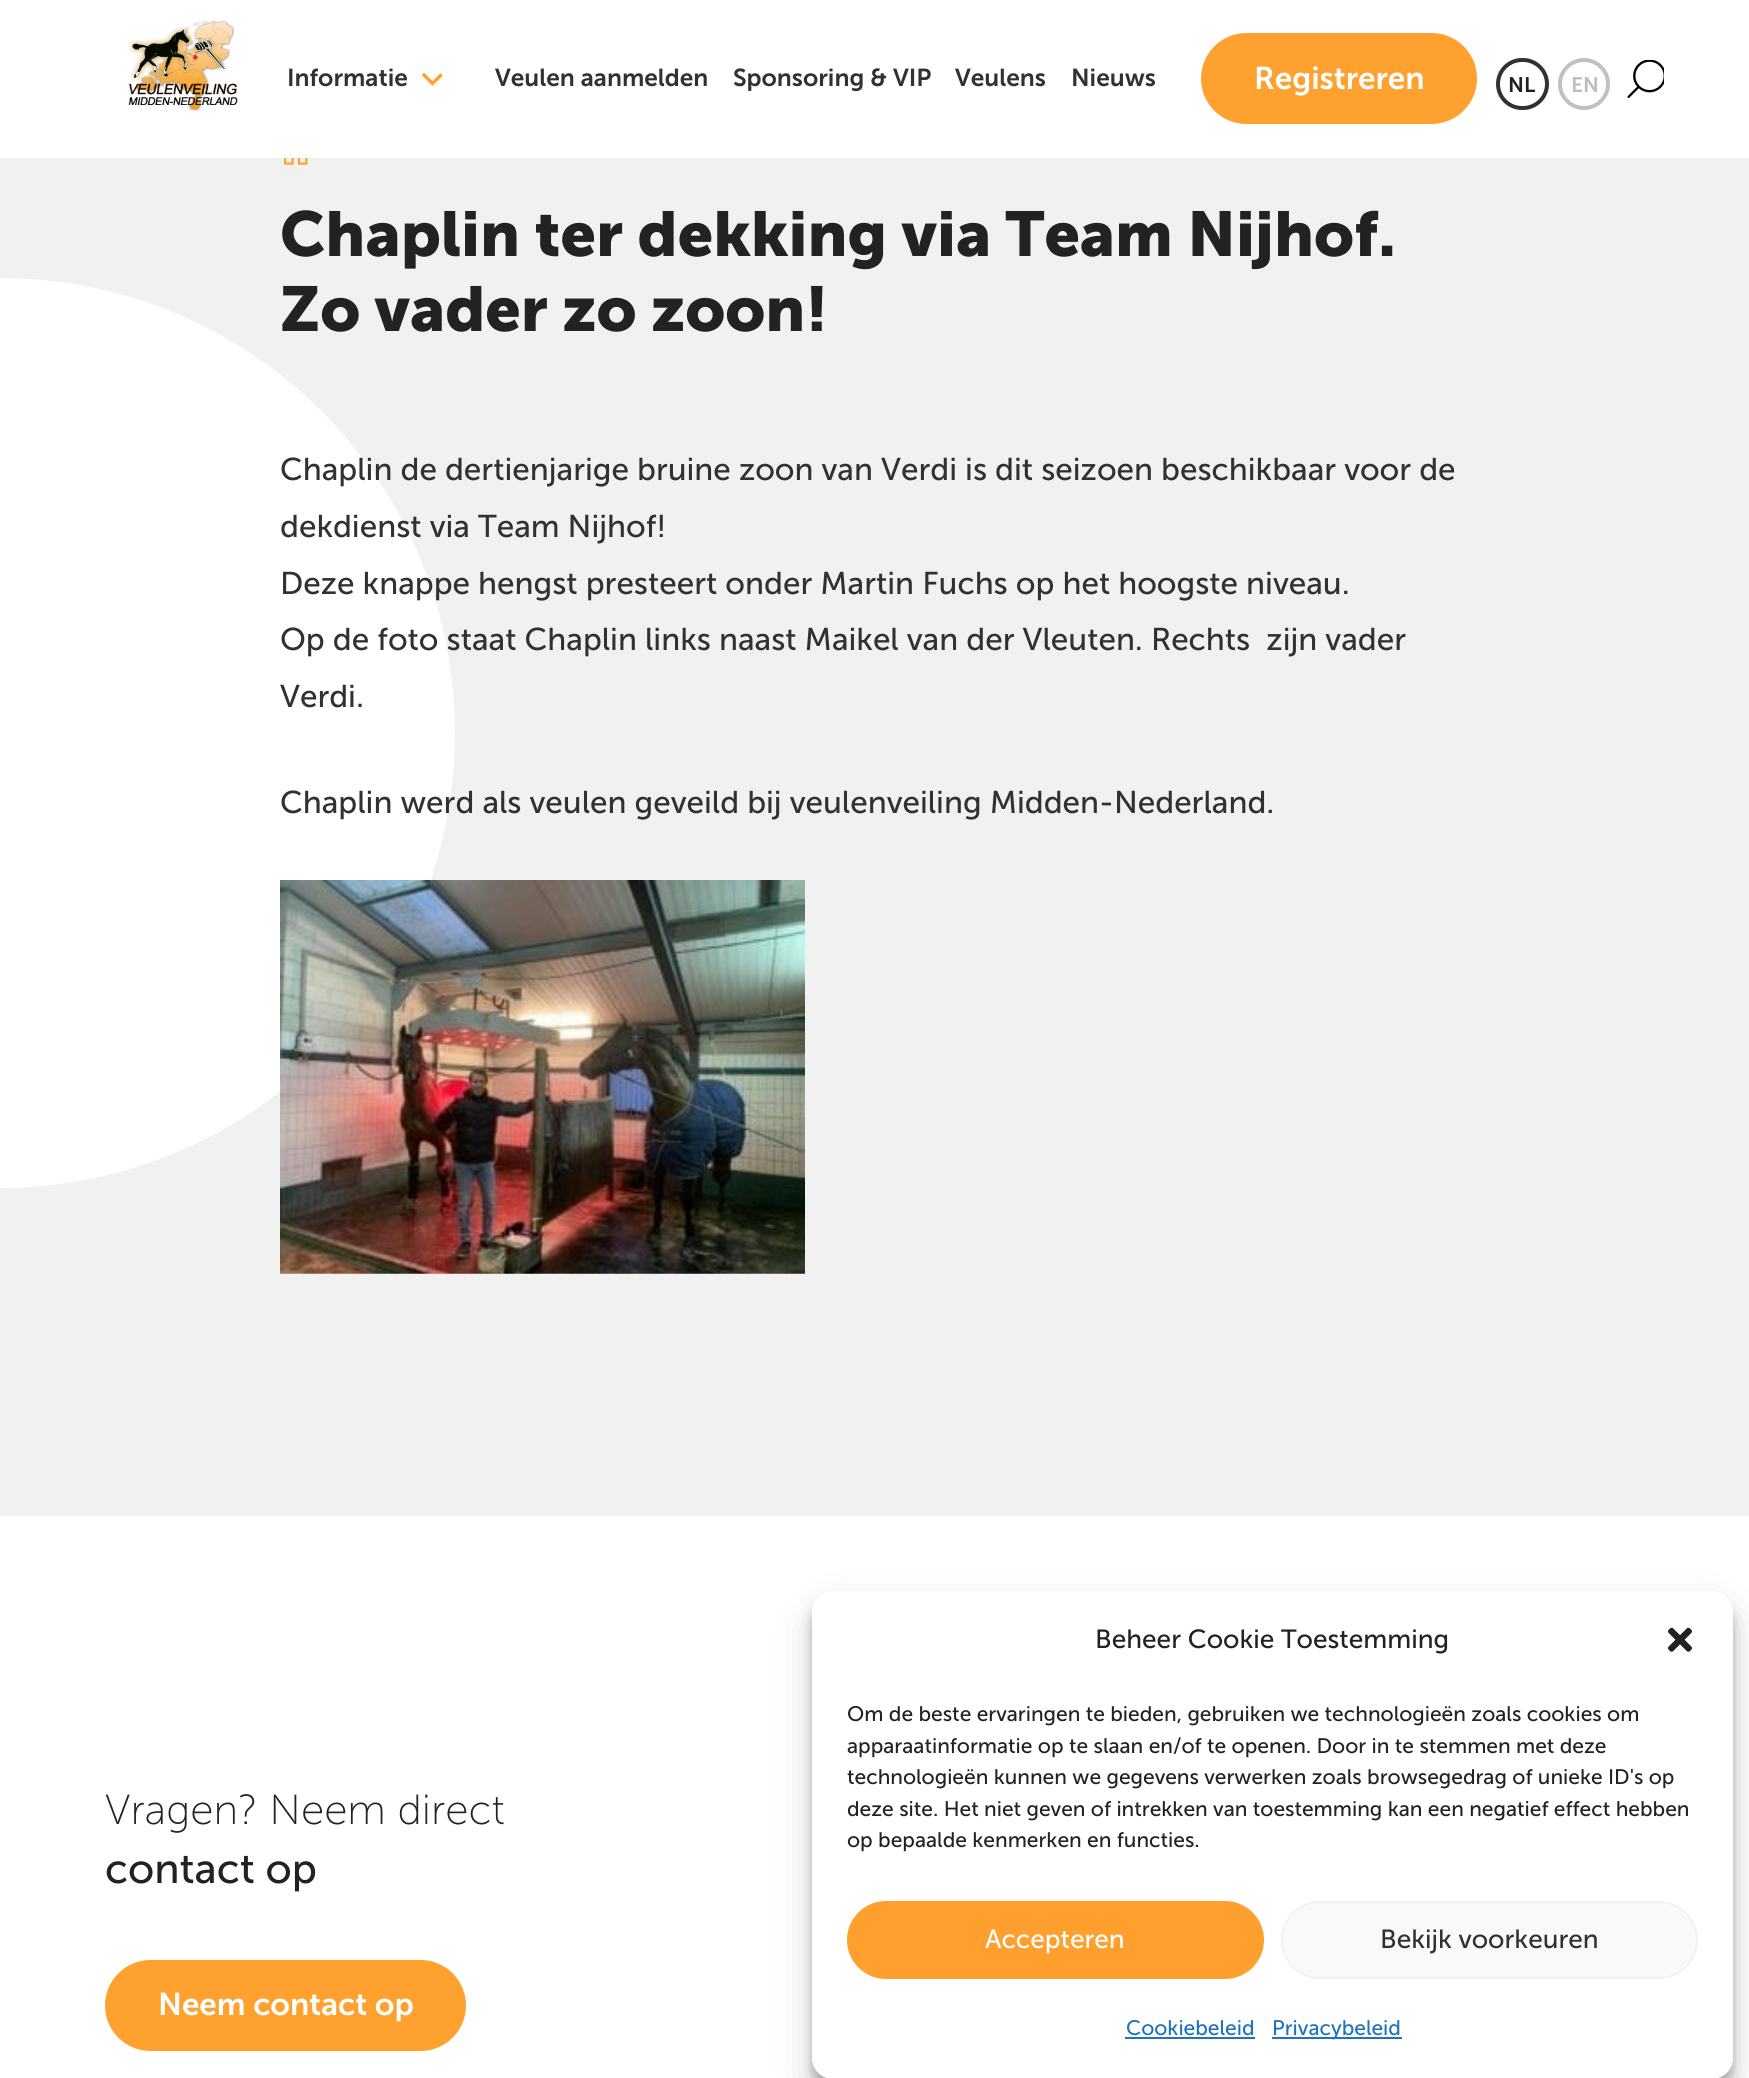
#include <cairo.h>
#include <math.h>
#include <stddef.h>

typedef struct { const char *family; double size; int italic, bold; unsigned color; } style_t;
static cairo_t *ctx;

static void ink(unsigned color) {
    cairo_set_source_rgb(ctx, (color >> 16) / 255.0, (color >> 8 & 255) / 255.0, (color & 255) / 255.0);
}

static void write(double x, double y, const char *s, const style_t *st) {
    cairo_select_font_face(ctx, st->family, st->italic ? CAIRO_FONT_SLANT_ITALIC : CAIRO_FONT_SLANT_NORMAL,
        st->bold ? CAIRO_FONT_WEIGHT_BOLD : CAIRO_FONT_WEIGHT_NORMAL);
    cairo_set_font_size(ctx, st->size);
    ink(st->color);
    cairo_move_to(ctx, x, y);
    cairo_show_text(ctx, s);
}

static void block(double x, double y, double w, double h, unsigned color) {
    ink(color);
    cairo_rectangle(ctx, x, y, w, h);
    cairo_fill(ctx);
}

static void round_path(double x, double y, double w, double h, double r) {
    cairo_new_sub_path(ctx);
    cairo_arc(ctx, x + w - r, y + h - r, r, 0, M_PI / 2);
    cairo_arc(ctx, x + r, y + h - r, r, M_PI / 2, M_PI);
    cairo_arc(ctx, x + r, y + r, r, M_PI, 1.5 * M_PI);
    cairo_arc(ctx, x + w - r, y + r, r, 1.5 * M_PI, 2 * M_PI);
    cairo_close_path(ctx);
}

static void blur_box(double x, double y, double w, double h, double r, double blur, double alpha) {
    cairo_push_group_with_content(ctx, CAIRO_CONTENT_ALPHA);
    cairo_set_operator(ctx, CAIRO_OPERATOR_SOURCE);
    for (int i = 15; i >= -15 && fmin(w, h) + blur * i / 3 > 0; i -= 2) {
        double e = blur * i / 6;
        cairo_set_source_rgba(ctx, 0, 0, 0, alpha * erfc((i - 1) / 8.5) / 2);
        round_path(x - e, y - e, w + 2 * e, h + 2 * e, fmax(0, fmin(r + e + blur * .6, fmin(w, h) / 2 + e)));
        cairo_fill(ctx);
    }
    cairo_pattern_t *soft = cairo_pop_group(ctx);
    cairo_mask(ctx, soft);
    cairo_pattern_destroy(soft);
}

static void paste(const char *path, double x, double y, double w, double h) {
    cairo_surface_t *image = cairo_image_surface_create_from_png(path);
    cairo_save(ctx);
    cairo_set_source_surface(ctx, image, x, y);
    cairo_rectangle(ctx, x, y, w, h);
    cairo_fill(ctx);
    cairo_restore(ctx);
    cairo_surface_destroy(image);
}

static const style_t s1 = {"Museo Sans SemiBold", 24.5, 0, 0, 0x313131};
static const style_t s2 = {"Museo Sans SemiBold", 31.5, 0, 0, 0xffffff};
static const style_t s3 = {"Museo Sans SemiBold", 21, 0, 0, 0x222222};
static const style_t s4 = {"Museo Sans SemiBold", 21, 0, 0, 0xbdbdbd};
static const style_t s5 = {"Museo Sans", 63, 0, 1, 0x222222};
static const style_t s6 = {"Museo Sans", 31.5, 0, 0, 0x313131};
static const style_t s7 = {"Museo Sans ExtraLight", 42, 0, 0, 0x222222};
static const style_t s8 = {"Museo Sans", 42, 0, 0, 0x222222};
static const style_t s9 = {"Museo Sans", 26.25, 0, 0, 0x222222};
static const style_t s10 = {"Museo Sans", 21, 0, 0, 0x222222};
static const style_t s11 = {"Museo Sans", 26.25, 0, 0, 0xffffff};
static const style_t s12 = {"Museo Sans", 26.25, 0, 0, 0x313131};
static const style_t s13 = {"Museo Sans", 21, 0, 0, 0x1e73be};

int main(void) {
    cairo_surface_t *surface = cairo_image_surface_create(CAIRO_FORMAT_RGB24, 1749, 2078);
    ctx = cairo_create(surface);
    cairo_font_options_t *options = cairo_font_options_create();
    cairo_font_options_set_hint_metrics(options, CAIRO_HINT_METRICS_OFF);
    cairo_font_options_set_hint_style(options, CAIRO_HINT_STYLE_NONE);
    cairo_set_font_options(ctx, options);
    cairo_set_miter_limit(ctx, 4);
    ink(0xf1f1f1);
    cairo_paint(ctx);
    block(0, 0, 1749, 158, 0xffffff);
    paste("pic1.png", 128, 19, 110, 92);
    write(287, 86, "Informatie", &s1);
    cairo_new_path(ctx);
    cairo_move_to(ctx, 424, 75);
    cairo_line_to(ctx, 432, 83);
    cairo_move_to(ctx, 432.5, 83.5);
    cairo_line_to(ctx, 440.5, 75.5);
    ink(0xffa12f);
    cairo_set_line_width(ctx, 3.3);
    cairo_set_line_cap(ctx, CAIRO_LINE_CAP_SQUARE);
    cairo_stroke(ctx);
    write(495, 86, "Veulen aanmelden", &s1);
    write(733, 86, "Sponsoring & VIP", &s1);
    write(955, 86, "Veulens", &s1);
    write(1071, 86, "Nieuws", &s1);
    ink(0xffa12f);
    round_path(1203, 35, 272, 87, 43.5);
    cairo_fill_preserve(ctx);
    cairo_set_line_width(ctx, 4);
    cairo_set_line_cap(ctx, CAIRO_LINE_CAP_BUTT);
    cairo_stroke(ctx);
    write(1254, 89, "Registreren", &s2);
    round_path(1498, 60, 49, 48, 24);
    ink(0x313131);
    cairo_stroke(ctx);
    write(1508, 92, "NL", &s3);
    cairo_new_path(ctx);
    cairo_arc(ctx, 1584, 84, 24, 0, 2 * M_PI);
    ink(0xc1c1c1);
    cairo_stroke(ctx);
    write(1571, 92, "EN", &s4);
    paste("pic2.png", 1627, 60, 37, 38);
    ink(0xffffff);
    cairo_arc(ctx, 0, 733, 455, 0, 2 * M_PI);
    cairo_fill(ctx);
    paste("pic3.png", 284, 158, 24, 7);
    write(280, 256, "Chaplin ter dekking via Team Nijhof.", &s5);
    write(280, 331, "Zo vader zo zoon!", &s5);
    write(280, 480, "Chaplin de dertienjarige bruine zoon van Verdi is dit seizoen beschikbaar voor de", &s6);
    write(280, 537, "dekdienst via Team Nijhof!", &s6);
    write(280, 594, "Deze knappe hengst presteert onder Martin Fuchs op het hoogste niveau.", &s6);
    write(280, 650, "Op de foto staat Chaplin links naast Maikel van der Vleuten. Rechts  zijn vader", &s6);
    write(280, 707, "Verdi.", &s6);
    write(280, 813, "Chaplin werd als veulen geveild bij veulenveiling Midden-Nederland.", &s6);
    paste("pic4.png", 280, 880, 525, 394);
    block(0, 1516, 1749, 562, 0xffffff);
    write(105, 1824, "Vragen? Neem direct", &s7);
    write(105, 1883, "contact op", &s8);
    ink(0xffa12f);
    round_path(107, 1962, 357, 87, 43.5);
    cairo_fill_preserve(ctx);
    cairo_stroke(ctx);
    write(158, 2015, "Neem contact op", &s2);
    ink(0x000000);
    blur_box(812, 1601, 921, 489, 21, 5, 0.23);
    blur_box(812, 1608, 921, 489, 21, 17.5, 0.19);
    ink(0xffffff);
    round_path(812, 1591, 921, 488, 21);
    cairo_fill(ctx);
    write(1095, 1648, "Beheer Cookie Toestemming", &s9);
    paste("pic5.png", 1668, 1627, 24, 25);
    write(847, 1721, "Om de beste ervaringen te bieden, gebruiken we technologieën zoals cookies om", &s10);
    write(847, 1753, "apparaatinformatie op te slaan en/of te openen. Door in te stemmen met deze", &s10);
    write(847, 1784, "technologieën kunnen we gegevens verwerken zoals browsegedrag of unieke ID's op", &s10);
    write(847, 1816, "deze site. Het niet geven of intrekken van toestemming kan een negatief effect hebben", &s10);
    write(847, 1847, "op bepaalde kenmerken en functies.", &s10);
    ink(0xffa02e);
    round_path(848, 1902, 415, 76, 38);
    cairo_fill_preserve(ctx);
    cairo_set_line_width(ctx, 2);
    cairo_stroke(ctx);
    write(985, 1948, "Accepteren", &s11);
    ink(0xf9f9f9);
    round_path(1282, 1902, 415, 76, 38);
    cairo_fill_preserve(ctx);
    ink(0xf2f2f2);
    cairo_stroke(ctx);
    write(1380, 1948, "Bekijk voorkeuren", &s12);
    write(1126, 2035, "Cookiebeleid", &s13);
    block(1125, 2037, 130, 2, 0x1e73be);
    block(1272, 2037, 130, 2, 0x1e73be);
    write(1272, 2035, "Privacybeleid", &s13);
    cairo_surface_write_to_png(surface, "screenshot.png");
    cairo_font_options_destroy(options);
    cairo_destroy(ctx);
    cairo_surface_destroy(surface);
    return 0;
}
